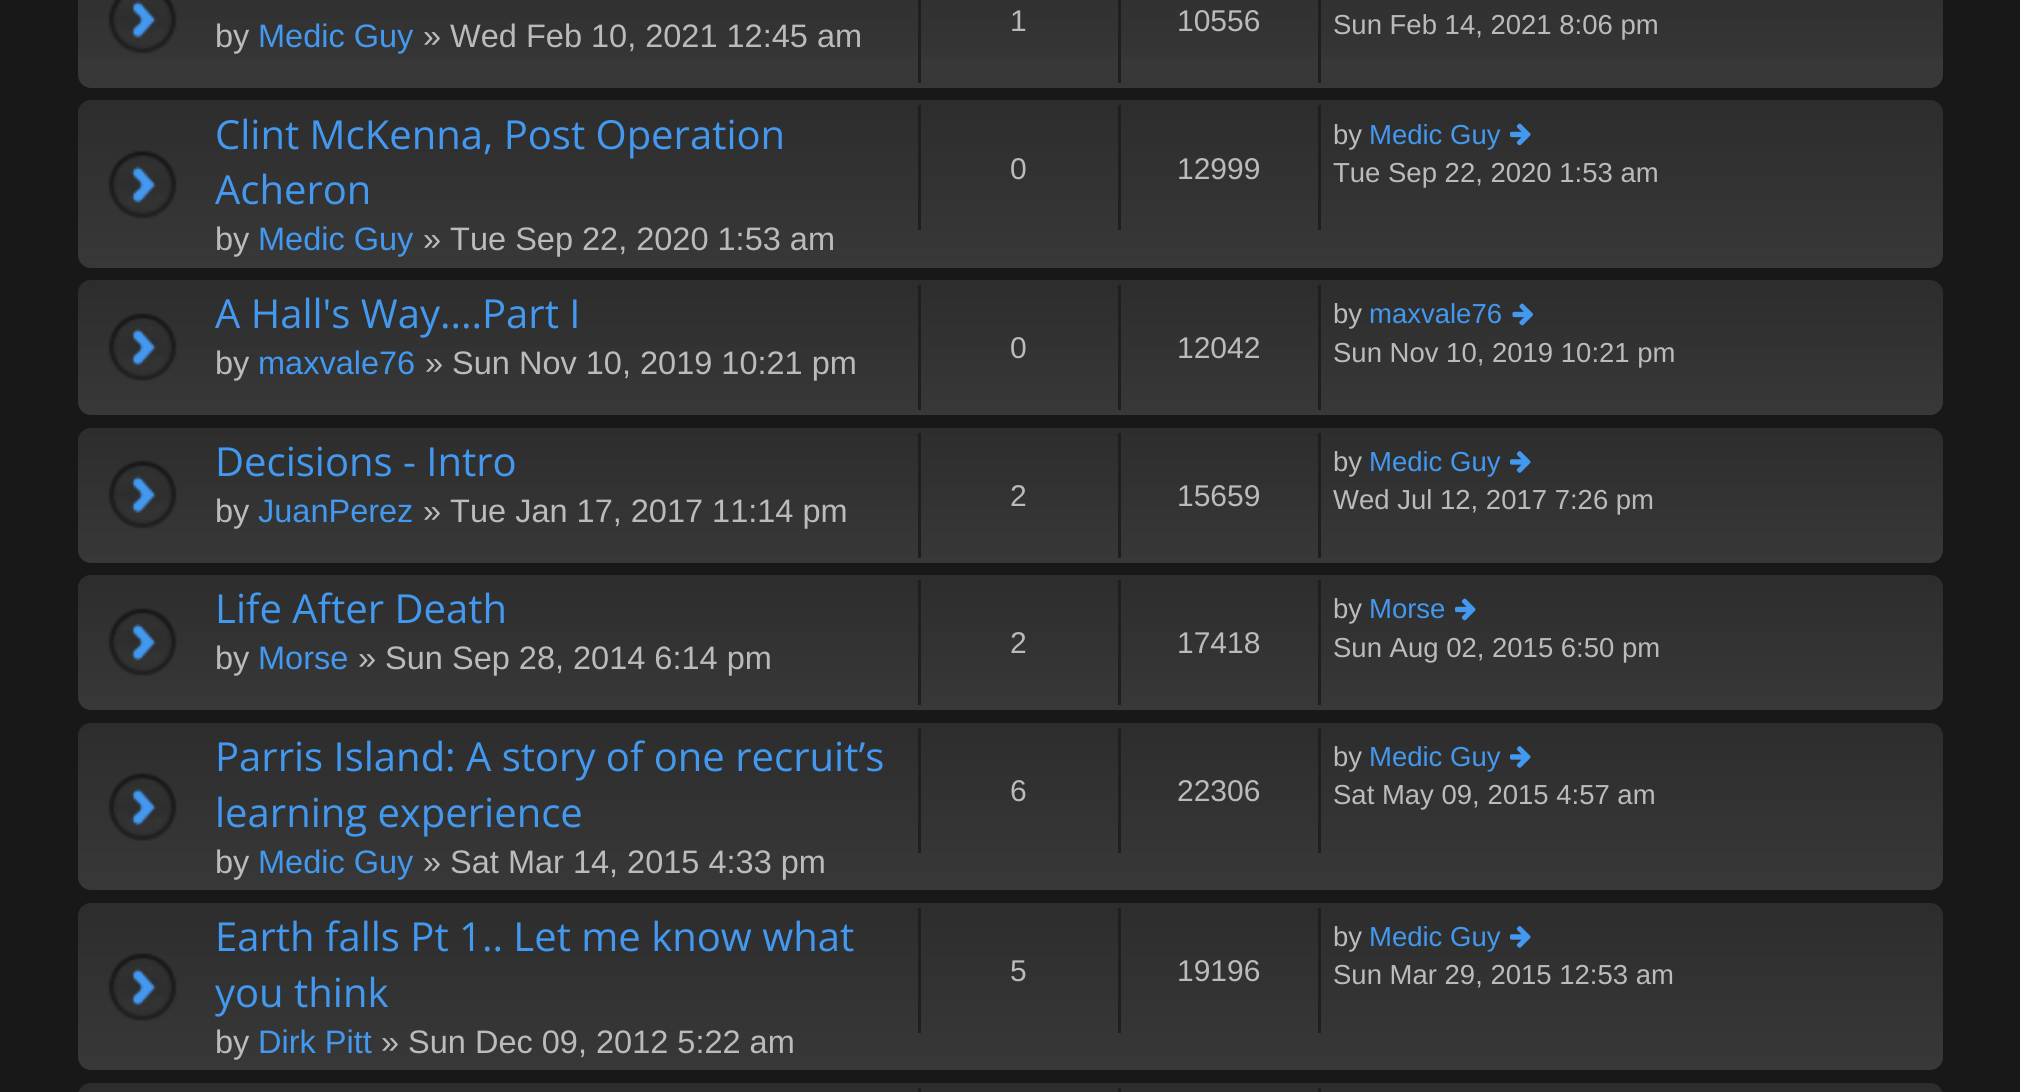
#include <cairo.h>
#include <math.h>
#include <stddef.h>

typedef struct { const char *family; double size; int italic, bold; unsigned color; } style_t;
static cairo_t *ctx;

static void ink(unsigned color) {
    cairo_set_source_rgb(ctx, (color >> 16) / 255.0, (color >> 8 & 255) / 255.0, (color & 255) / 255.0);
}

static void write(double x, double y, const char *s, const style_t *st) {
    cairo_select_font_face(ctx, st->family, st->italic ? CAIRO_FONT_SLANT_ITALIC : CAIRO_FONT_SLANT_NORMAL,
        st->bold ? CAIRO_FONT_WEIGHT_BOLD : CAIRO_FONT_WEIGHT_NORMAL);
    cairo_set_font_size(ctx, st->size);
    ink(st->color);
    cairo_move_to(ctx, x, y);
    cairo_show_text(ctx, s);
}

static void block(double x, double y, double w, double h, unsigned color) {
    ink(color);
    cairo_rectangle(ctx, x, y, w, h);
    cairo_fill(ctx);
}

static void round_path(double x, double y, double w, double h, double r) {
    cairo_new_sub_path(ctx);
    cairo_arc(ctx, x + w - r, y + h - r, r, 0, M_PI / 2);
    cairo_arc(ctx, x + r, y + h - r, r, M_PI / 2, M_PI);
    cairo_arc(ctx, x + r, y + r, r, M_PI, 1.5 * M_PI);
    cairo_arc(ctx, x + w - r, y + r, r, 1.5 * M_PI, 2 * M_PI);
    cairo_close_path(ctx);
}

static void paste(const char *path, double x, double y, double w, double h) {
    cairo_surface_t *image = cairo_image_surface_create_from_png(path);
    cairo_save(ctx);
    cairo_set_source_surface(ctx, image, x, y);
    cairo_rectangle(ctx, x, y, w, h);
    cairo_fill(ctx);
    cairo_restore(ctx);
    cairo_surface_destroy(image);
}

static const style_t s1 = {"Liberation Sans", 32.5, 0, 0, 0xbbbbbb};
static const style_t s2 = {"Liberation Sans", 32.5, 0, 0, 0x4398ef};
static const style_t s3 = {"Liberation Sans", 30, 0, 0, 0xbbbbbb};
static const style_t s4 = {"Liberation Sans", 27.5, 0, 0, 0xbbbbbb};
static const style_t s5 = {"Open Sans", 40, 0, 0, 0x4398ef};
static const style_t s6 = {"Liberation Sans", 27.5, 0, 0, 0x4398ef};

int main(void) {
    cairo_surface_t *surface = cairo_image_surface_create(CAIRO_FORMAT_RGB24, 2020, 1092);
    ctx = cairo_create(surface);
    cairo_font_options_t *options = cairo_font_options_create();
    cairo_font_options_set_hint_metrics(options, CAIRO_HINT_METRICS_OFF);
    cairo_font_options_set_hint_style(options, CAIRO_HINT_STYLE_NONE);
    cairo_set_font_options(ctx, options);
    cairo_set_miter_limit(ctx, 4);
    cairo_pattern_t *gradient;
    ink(0x181818);
    cairo_paint(ctx);
    ink(0x383838);
    round_path(78, -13, 1865, 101, 13);
    cairo_fill(ctx);
    gradient = cairo_pattern_create_linear(1010, -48, 1010, 88);
    cairo_pattern_add_color_stop_rgba(gradient, 0, 0, 0, 0, 0.2);
    cairo_pattern_add_color_stop_rgba(gradient, 1, 0, 0, 0, 0);
    cairo_set_source(ctx, gradient);
    cairo_pattern_destroy(gradient);
    cairo_rectangle(ctx, 78, 0, 1865, 57);
    cairo_fill(ctx);
    paste("pic1.png", 108, 0, 69, 54);
    write(215, 47, "by", &s1);
    write(258, 47, "Medic Guy", &s2);
    write(423, 47, "» Wed Feb 10, 2021 12:45 am", &s1);
    block(918, 0, 3, 83, 0x1f1f1f);
    write(1010, 31, "1", &s3);
    block(1118, 0, 3, 83, 0x1f1f1f);
    write(1177, 31, "10556", &s3);
    block(1318, 0, 3, 83, 0x1f1f1f);
    write(1333, 34, "Sun Feb 14, 2021 8:06 pm", &s4);
    ink(0x383838);
    round_path(78, 100, 1865, 168, 13);
    cairo_fill(ctx);
    gradient = cairo_pattern_create_linear(1010, 100, 1010, 268);
    cairo_pattern_add_color_stop_rgba(gradient, 0, 0, 0, 0, 0.2);
    cairo_pattern_add_color_stop_rgba(gradient, 1, 0, 0, 0, 0);
    cairo_set_source(ctx, gradient);
    cairo_pattern_destroy(gradient);
    round_path(78, 100, 1865, 168, 13);
    cairo_fill(ctx);
    paste("pic2.png", 108, 150, 69, 69);
    write(215, 149, "Clint McKenna, Post Operation", &s5);
    write(215, 204, "Acheron", &s5);
    write(215, 250, "by", &s1);
    write(258, 250, "Medic Guy", &s2);
    write(423, 250, "» Tue Sep 22, 2020 1:53 am", &s1);
    block(918, 105, 3, 125, 0x1f1f1f);
    write(1010, 179, "0", &s3);
    block(1118, 105, 3, 125, 0x1f1f1f);
    write(1177, 179, "12999", &s3);
    block(1318, 105, 3, 125, 0x1f1f1f);
    write(1333, 144, "by", &s4);
    write(1369, 144, "Medic Guy", &s6);
    paste("pic3.png", 1510, 123, 21, 23);
    write(1333, 182, "Tue Sep 22, 2020 1:53 am", &s4);
    ink(0x383838);
    round_path(78, 280, 1865, 135, 13);
    cairo_fill(ctx);
    gradient = cairo_pattern_create_linear(1010, 280, 1010, 415);
    cairo_pattern_add_color_stop_rgba(gradient, 0, 0, 0, 0, 0.2);
    cairo_pattern_add_color_stop_rgba(gradient, 1, 0, 0, 0, 0);
    cairo_set_source(ctx, gradient);
    cairo_pattern_destroy(gradient);
    round_path(78, 280, 1865, 135, 13);
    cairo_fill(ctx);
    paste("pic4.png", 108, 313, 69, 68);
    write(215, 328, "A Hall's Way....Part I", &s5);
    write(215, 374, "by", &s1);
    write(258, 374, "maxvale76", &s2);
    write(425, 374, "» Sun Nov 10, 2019 10:21 pm", &s1);
    block(918, 285, 3, 125, 0x1f1f1f);
    write(1010, 358, "0", &s3);
    block(1118, 285, 3, 125, 0x1f1f1f);
    write(1177, 358, "12042", &s3);
    block(1318, 285, 3, 125, 0x1f1f1f);
    write(1333, 323, "by", &s4);
    write(1369, 323, "maxvale76", &s6);
    paste("pic5.png", 1512, 303, 21, 23);
    write(1333, 362, "Sun Nov 10, 2019 10:21 pm", &s4);
    ink(0x383838);
    round_path(78, 428, 1865, 135, 13);
    cairo_fill(ctx);
    gradient = cairo_pattern_create_linear(1010, 427, 1010, 563);
    cairo_pattern_add_color_stop_rgba(gradient, 0, 0, 0, 0, 0.2);
    cairo_pattern_add_color_stop_rgba(gradient, 1, 0, 0, 0, 0);
    cairo_set_source(ctx, gradient);
    cairo_pattern_destroy(gradient);
    round_path(78, 428, 1865, 135, 13);
    cairo_fill(ctx);
    paste("pic6.png", 108, 460, 69, 69);
    write(215, 476, "Decisions - Intro", &s5);
    write(215, 522, "by", &s1);
    write(258, 522, "JuanPerez", &s2);
    write(423, 522, "» Tue Jan 17, 2017 11:14 pm", &s1);
    block(918, 433, 3, 125, 0x1f1f1f);
    write(1010, 506, "2", &s3);
    block(1118, 433, 3, 125, 0x1f1f1f);
    write(1177, 506, "15659", &s3);
    block(1318, 433, 3, 125, 0x1f1f1f);
    write(1333, 471, "by", &s4);
    write(1369, 471, "Medic Guy", &s6);
    paste("pic7.png", 1510, 451, 21, 22);
    write(1333, 509, "Wed Jul 12, 2017 7:26 pm", &s4);
    ink(0x383838);
    round_path(78, 575, 1865, 135, 13);
    cairo_fill(ctx);
    gradient = cairo_pattern_create_linear(1010, 575, 1010, 710);
    cairo_pattern_add_color_stop_rgba(gradient, 0, 0, 0, 0, 0.2);
    cairo_pattern_add_color_stop_rgba(gradient, 1, 0, 0, 0, 0);
    cairo_set_source(ctx, gradient);
    cairo_pattern_destroy(gradient);
    round_path(78, 575, 1865, 135, 13);
    cairo_fill(ctx);
    paste("pic8.png", 108, 608, 69, 68);
    write(215, 623, "Life After Death", &s5);
    write(215, 669, "by", &s1);
    write(258, 669, "Morse", &s2);
    write(358, 669, "» Sun Sep 28, 2014 6:14 pm", &s1);
    block(918, 580, 3, 125, 0x1f1f1f);
    write(1010, 653, "2", &s3);
    block(1118, 580, 3, 125, 0x1f1f1f);
    write(1177, 653, "17418", &s3);
    block(1318, 580, 3, 125, 0x1f1f1f);
    write(1333, 618, "by", &s4);
    write(1369, 618, "Morse", &s6);
    paste("pic9.png", 1455, 598, 21, 23);
    write(1333, 657, "Sun Aug 02, 2015 6:50 pm", &s4);
    ink(0x383838);
    round_path(78, 723, 1865, 167, 13);
    cairo_fill(ctx);
    gradient = cairo_pattern_create_linear(1010, 722, 1010, 890);
    cairo_pattern_add_color_stop_rgba(gradient, 0, 0, 0, 0, 0.2);
    cairo_pattern_add_color_stop_rgba(gradient, 1, 0, 0, 0, 0);
    cairo_set_source(ctx, gradient);
    cairo_pattern_destroy(gradient);
    round_path(78, 723, 1865, 167, 13);
    cairo_fill(ctx);
    paste("pic10.png", 108, 773, 69, 68);
    write(215, 771, "Parris Island: A story of one recruit’s", &s5);
    write(215, 827, "learning experience", &s5);
    write(215, 873, "by", &s1);
    write(258, 873, "Medic Guy", &s2);
    write(423, 873, "» Sat Mar 14, 2015 4:33 pm", &s1);
    block(918, 728, 3, 125, 0x1f1f1f);
    write(1010, 801, "6", &s3);
    block(1118, 728, 3, 125, 0x1f1f1f);
    write(1177, 801, "22306", &s3);
    block(1318, 728, 3, 125, 0x1f1f1f);
    write(1333, 766, "by", &s4);
    write(1369, 766, "Medic Guy", &s6);
    paste("pic11.png", 1510, 746, 21, 22);
    write(1333, 804, "Sat May 09, 2015 4:57 am", &s4);
    ink(0x383838);
    round_path(78, 903, 1865, 167, 13);
    cairo_fill(ctx);
    gradient = cairo_pattern_create_linear(1010, 902, 1010, 1070);
    cairo_pattern_add_color_stop_rgba(gradient, 0, 0, 0, 0, 0.2);
    cairo_pattern_add_color_stop_rgba(gradient, 1, 0, 0, 0, 0);
    cairo_set_source(ctx, gradient);
    cairo_pattern_destroy(gradient);
    round_path(78, 903, 1865, 167, 13);
    cairo_fill(ctx);
    paste("pic12.png", 108, 953, 69, 68);
    write(215, 951, "Earth falls Pt 1.. Let me know what", &s5);
    write(215, 1007, "you think", &s5);
    write(215, 1053, "by", &s1);
    write(258, 1053, "Dirk Pitt", &s2);
    write(381, 1053, "» Sun Dec 09, 2012 5:22 am", &s1);
    block(918, 908, 3, 125, 0x1f1f1f);
    write(1010, 981, "5", &s3);
    block(1118, 908, 3, 125, 0x1f1f1f);
    write(1177, 981, "19196", &s3);
    block(1318, 908, 3, 125, 0x1f1f1f);
    write(1333, 946, "by", &s4);
    write(1369, 946, "Medic Guy", &s6);
    paste("pic11.png", 1510, 926, 21, 22);
    write(1333, 984, "Sun Mar 29, 2015 12:53 am", &s4);
    ink(0x383838);
    round_path(78, 1083, 1865, 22, 13);
    cairo_fill(ctx);
    gradient = cairo_pattern_create_linear(1010, 1082, 1010, 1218);
    cairo_pattern_add_color_stop_rgba(gradient, 0, 0, 0, 0, 0.2);
    cairo_pattern_add_color_stop_rgba(gradient, 1, 0, 0, 0, 0);
    cairo_set_source(ctx, gradient);
    cairo_pattern_destroy(gradient);
    round_path(78, 1083, 1865, 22, 13);
    cairo_fill(ctx);
    block(918, 1088, 3, 4, 0x1f1f1f);
    block(1118, 1088, 3, 4, 0x1f1f1f);
    block(1318, 1088, 3, 4, 0x1f1f1f);
    cairo_surface_write_to_png(surface, "screenshot.png");
    cairo_font_options_destroy(options);
    cairo_destroy(ctx);
    cairo_surface_destroy(surface);
    return 0;
}
